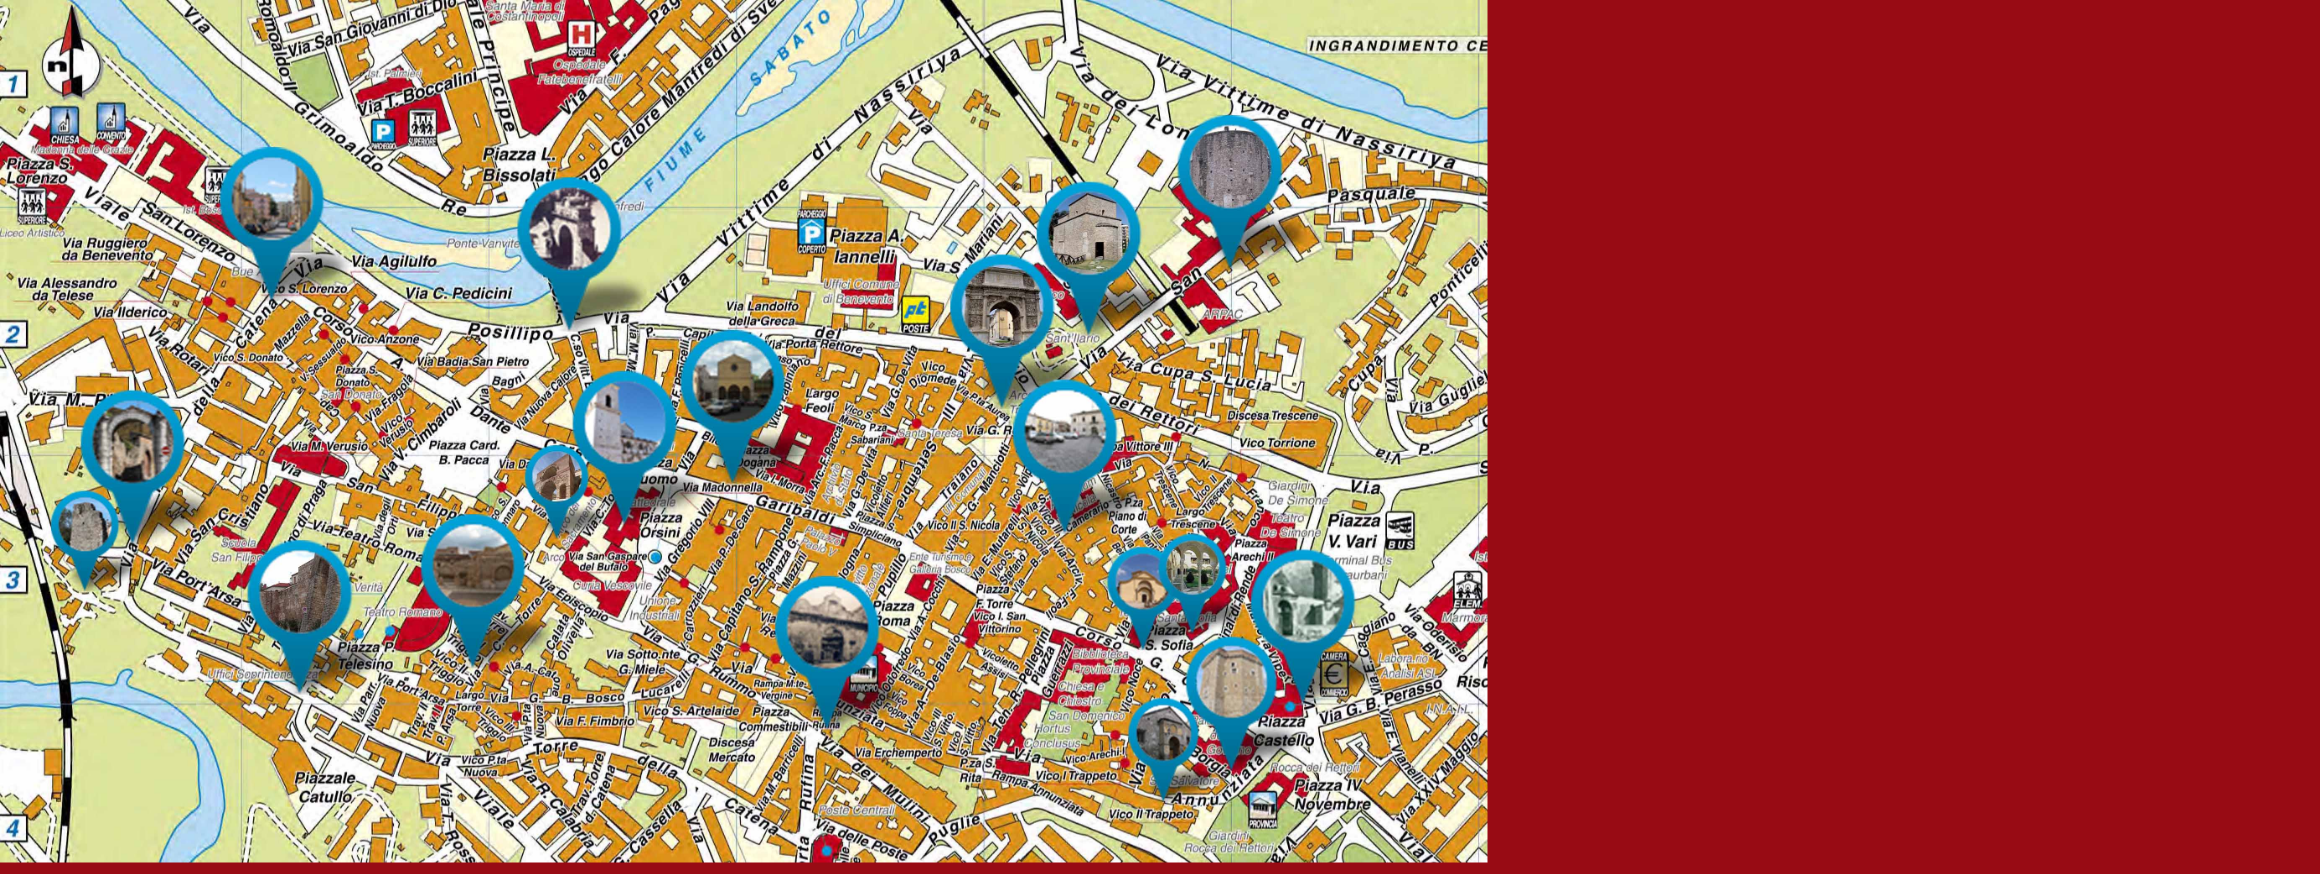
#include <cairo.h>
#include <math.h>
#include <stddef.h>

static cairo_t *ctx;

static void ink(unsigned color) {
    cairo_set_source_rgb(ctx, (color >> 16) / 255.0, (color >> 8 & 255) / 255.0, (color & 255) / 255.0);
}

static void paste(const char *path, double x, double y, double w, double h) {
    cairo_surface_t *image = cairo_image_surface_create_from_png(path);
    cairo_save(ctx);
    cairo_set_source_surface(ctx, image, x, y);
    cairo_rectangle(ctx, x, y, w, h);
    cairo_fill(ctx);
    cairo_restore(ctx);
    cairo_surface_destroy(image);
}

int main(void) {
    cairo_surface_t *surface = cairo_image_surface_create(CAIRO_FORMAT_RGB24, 2320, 874);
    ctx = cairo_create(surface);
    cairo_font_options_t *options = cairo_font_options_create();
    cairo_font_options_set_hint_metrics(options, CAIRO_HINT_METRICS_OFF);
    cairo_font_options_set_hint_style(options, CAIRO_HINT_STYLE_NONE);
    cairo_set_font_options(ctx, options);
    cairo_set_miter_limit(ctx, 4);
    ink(0x980b14);
    cairo_paint(ctx);
    paste("pic1.png", 0, 0, 1488, 863);
    cairo_surface_write_to_png(surface, "screenshot.png");
    cairo_font_options_destroy(options);
    cairo_destroy(ctx);
    cairo_surface_destroy(surface);
    return 0;
}
